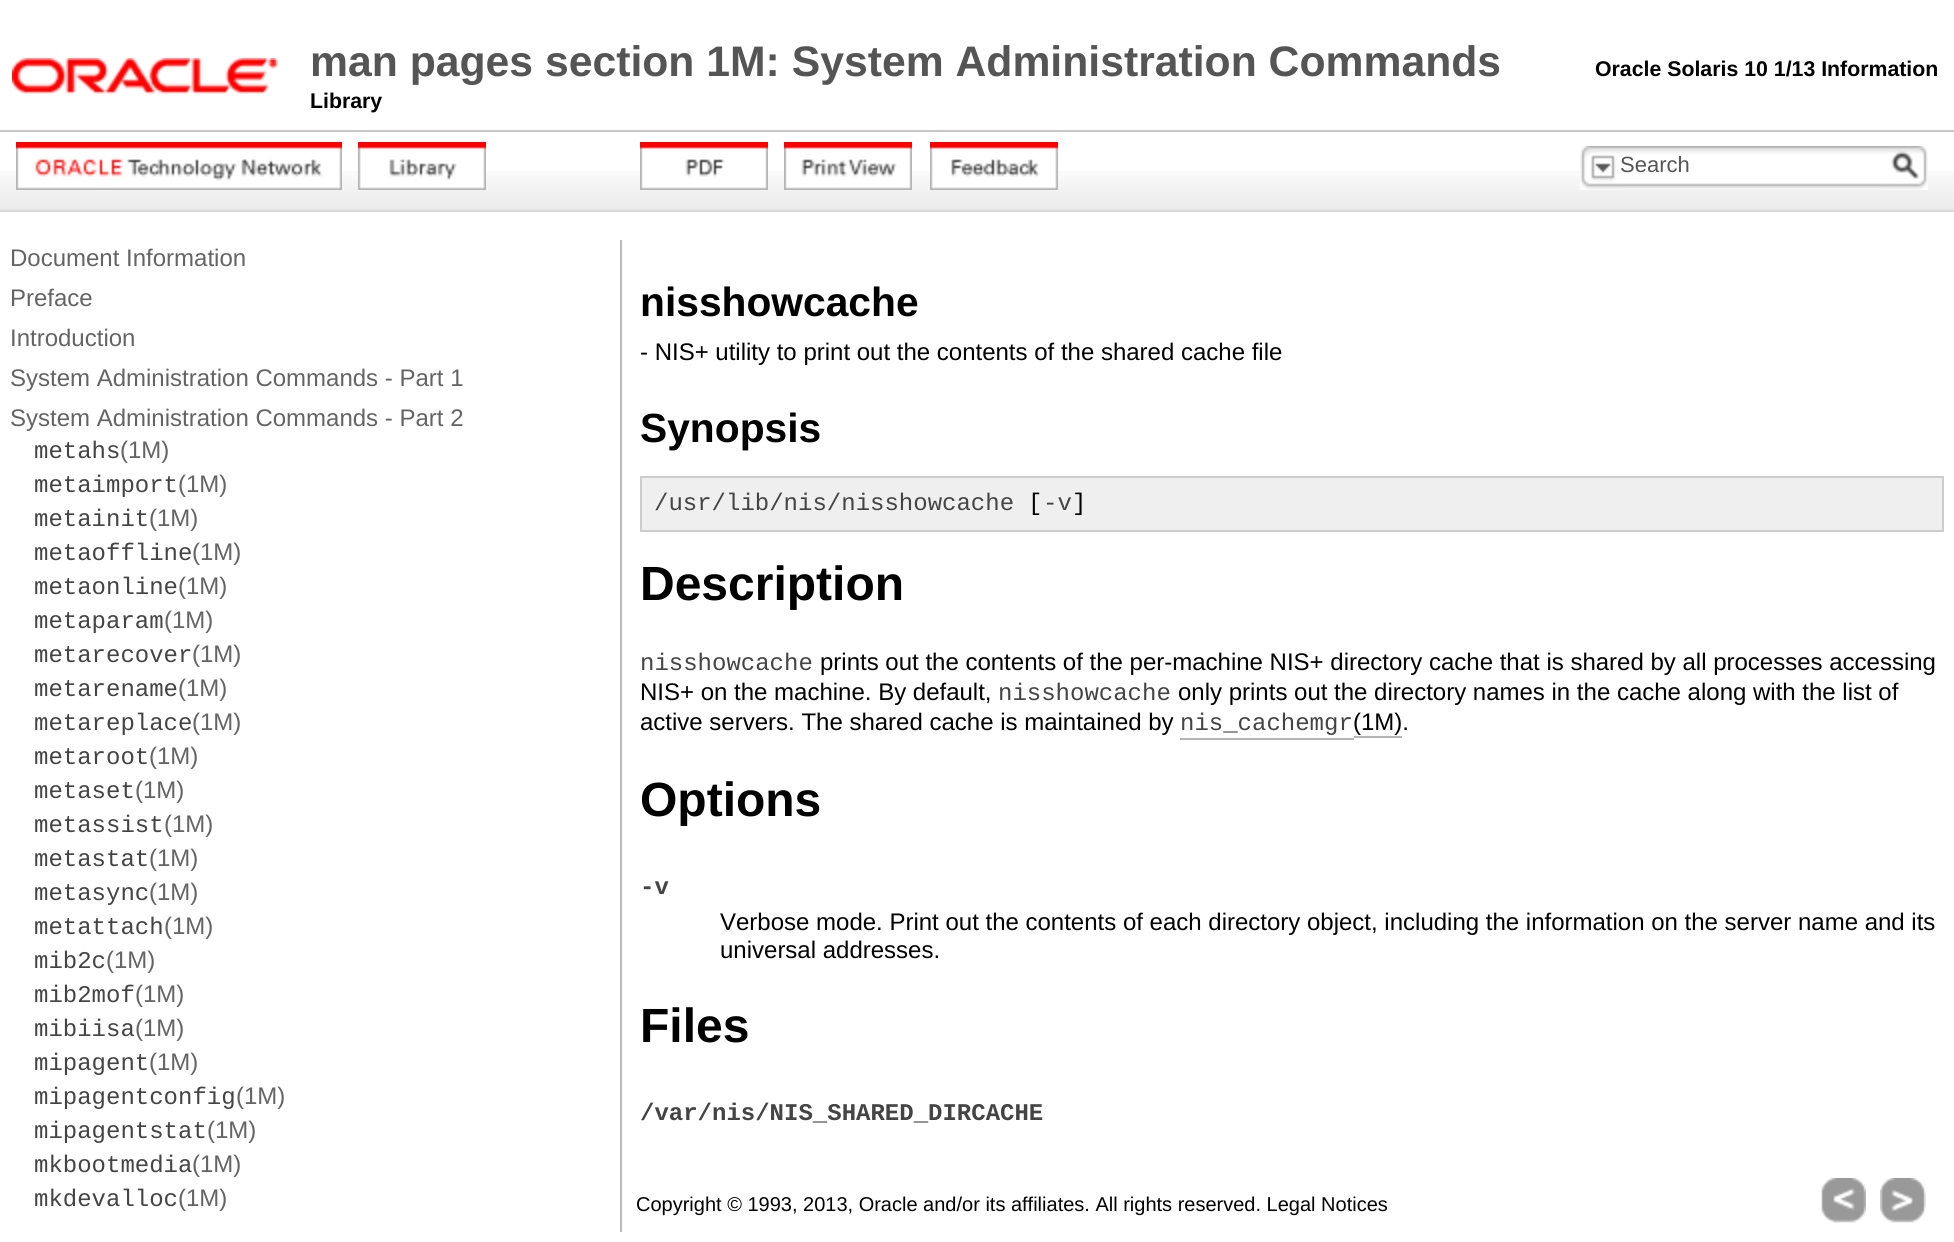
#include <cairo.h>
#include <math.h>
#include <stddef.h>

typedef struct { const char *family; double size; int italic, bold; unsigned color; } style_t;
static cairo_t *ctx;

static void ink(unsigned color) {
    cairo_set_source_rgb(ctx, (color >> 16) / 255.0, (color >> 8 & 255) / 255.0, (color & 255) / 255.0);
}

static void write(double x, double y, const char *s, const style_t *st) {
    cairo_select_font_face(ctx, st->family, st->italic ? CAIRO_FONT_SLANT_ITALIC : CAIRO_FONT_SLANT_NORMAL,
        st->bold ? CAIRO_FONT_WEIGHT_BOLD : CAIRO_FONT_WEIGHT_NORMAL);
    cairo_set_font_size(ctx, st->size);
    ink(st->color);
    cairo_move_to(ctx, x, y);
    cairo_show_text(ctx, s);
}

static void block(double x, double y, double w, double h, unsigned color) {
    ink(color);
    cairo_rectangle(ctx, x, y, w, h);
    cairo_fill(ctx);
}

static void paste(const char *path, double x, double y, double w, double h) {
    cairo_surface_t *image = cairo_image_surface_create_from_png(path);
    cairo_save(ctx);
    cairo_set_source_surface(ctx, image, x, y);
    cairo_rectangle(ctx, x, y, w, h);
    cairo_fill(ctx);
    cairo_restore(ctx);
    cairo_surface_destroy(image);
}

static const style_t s1 = {"Liberation Sans", 42.7, 0, 1, 0x555555};
static const style_t s2 = {"Liberation Sans", 21.3, 0, 1, 0x000000};
static const style_t s3 = {"Liberation Sans", 22, 0, 0, 0x555555};
static const style_t s4 = {"Liberation Sans", 24, 0, 0, 0x646464};
static const style_t s5 = {"Liberation Mono", 24, 0, 0, 0x444444};
static const style_t s6 = {"Liberation Sans", 40.75, 0, 1, 0x000000};
static const style_t s7 = {"Liberation Sans", 24, 0, 0, 0x000000};
static const style_t s8 = {"Liberation Mono", 24, 0, 0, 0x000000};
static const style_t s9 = {"Liberation Sans", 48, 0, 1, 0x000000};
static const style_t s10 = {"Liberation Mono", 24, 0, 1, 0x444444};
static const style_t s11 = {"Liberation Sans", 20, 0, 0, 0x000000};

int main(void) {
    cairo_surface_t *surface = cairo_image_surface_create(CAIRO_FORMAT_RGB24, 1954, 1242);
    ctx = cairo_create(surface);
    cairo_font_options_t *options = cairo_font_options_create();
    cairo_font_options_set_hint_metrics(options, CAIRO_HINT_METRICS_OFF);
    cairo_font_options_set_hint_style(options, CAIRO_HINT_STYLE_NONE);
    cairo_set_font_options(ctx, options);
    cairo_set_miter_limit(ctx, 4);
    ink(0xffffff);
    cairo_paint(ctx);
    paste("pic1.png", 12, 58, 266, 36);
    write(310, 76, "man pages section 1M: System Administration Commands", &s1);
    write(1595, 76, "Oracle Solaris 10 1/13 Information", &s2);
    write(310, 108, "Library", &s2);
    paste("pic2.png", 0, 171, 1954, 41);
    block(0, 130, 1954, 2, 0xc8c8c8);
    paste("pic3.png", 16, 142, 326, 48);
    paste("pic4.png", 358, 142, 128, 48);
    paste("pic5.png", 640, 142, 128, 48);
    paste("pic6.png", 784, 142, 128, 48);
    paste("pic7.png", 930, 142, 128, 48);
    paste("pic8.png", 1580, 146, 40, 44);
    paste("pic9.png", 1620, 146, 266, 42);
    write(1620, 172, "Search", &s3);
    paste("pic10.png", 1886, 146, 42, 44);
    block(620, 240, 2, 992, 0xb9b9b9);
    write(10, 266, "Document Information", &s4);
    write(10, 306, "Preface", &s4);
    write(10, 346, "Introduction", &s4);
    write(10, 386, "System Administration Commands - Part 1", &s4);
    write(10, 426, "System Administration Commands - Part 2", &s4);
    write(34, 458, "metahs", &s5);
    write(120, 458, "(1M)", &s4);
    write(34, 492, "metaimport", &s5);
    write(178, 492, "(1M)", &s4);
    write(34, 526, "metainit", &s5);
    write(149, 526, "(1M)", &s4);
    write(34, 560, "metaoffline", &s5);
    write(192, 560, "(1M)", &s4);
    write(34, 594, "metaonline", &s5);
    write(178, 594, "(1M)", &s4);
    write(34, 628, "metaparam", &s5);
    write(164, 628, "(1M)", &s4);
    write(34, 662, "metarecover", &s5);
    write(192, 662, "(1M)", &s4);
    write(34, 696, "metarename", &s5);
    write(178, 696, "(1M)", &s4);
    write(34, 730, "metareplace", &s5);
    write(192, 730, "(1M)", &s4);
    write(34, 764, "metaroot", &s5);
    write(149, 764, "(1M)", &s4);
    write(34, 798, "metaset", &s5);
    write(135, 798, "(1M)", &s4);
    write(34, 832, "metassist", &s5);
    write(164, 832, "(1M)", &s4);
    write(34, 866, "metastat", &s5);
    write(149, 866, "(1M)", &s4);
    write(34, 900, "metasync", &s5);
    write(149, 900, "(1M)", &s4);
    write(34, 934, "metattach", &s5);
    write(164, 934, "(1M)", &s4);
    write(34, 968, "mib2c", &s5);
    write(106, 968, "(1M)", &s4);
    write(34, 1002, "mib2mof", &s5);
    write(135, 1002, "(1M)", &s4);
    write(34, 1036, "mibiisa", &s5);
    write(135, 1036, "(1M)", &s4);
    write(34, 1070, "mipagent", &s5);
    write(149, 1070, "(1M)", &s4);
    write(34, 1104, "mipagentconfig", &s5);
    write(236, 1104, "(1M)", &s4);
    write(34, 1138, "mipagentstat", &s5);
    write(207, 1138, "(1M)", &s4);
    write(34, 1172, "mkbootmedia", &s5);
    write(192, 1172, "(1M)", &s4);
    write(34, 1206, "mkdevalloc", &s5);
    write(178, 1206, "(1M)", &s4);
    write(640, 316, "nisshowcache", &s6);
    write(640, 360, "- NIS+ utility to print out the contents of the shared cache file", &s7);
    write(640, 442, "Synopsis", &s6);
    ink(0xefefef);
    cairo_rectangle(ctx, 641, 477, 1302, 54);
    cairo_fill_preserve(ctx);
    ink(0xcccccc);
    cairo_stroke(ctx);
    write(654, 510, "/usr/lib/nis/nisshowcache", &s5);
    write(1028, 510, "[", &s8);
    write(1043, 510, "-v", &s5);
    write(1072, 510, "]", &s8);
    write(640, 600, "Description", &s9);
    write(640, 670, "nisshowcache", &s5);
    write(820, 670, "prints out the contents of the per-machine NIS+ directory cache that is shared by all processes accessing", &s7);
    write(640, 700, "NIS+ on the machine. By default,", &s7);
    write(998, 700, "nisshowcache", &s5);
    write(1178, 700, "only prints out the directory names in the cache along with the list of", &s7);
    write(640, 730, "active servers. The shared cache is maintained by", &s7);
    write(1180, 730, "nis_cachemgr", &s5);
    block(1180, 738, 174, 2, 0xb4b4b4);
    write(1353, 730, "(1M).", &s7);
    block(1354, 736, 48, 2, 0xb4b4b4);
    write(640, 816, "Options", &s9);
    write(640, 894, "-v", &s10);
    write(720, 930, "Verbose mode. Print out the contents of each directory object, including the information on the server name and its", &s7);
    write(720, 958, "universal addresses.", &s7);
    write(640, 1042, "Files", &s9);
    write(640, 1120, "/var/nis/NIS_SHARED_DIRCACHE", &s10);
    write(636, 1211, "Copyright © 1993, 2013, Oracle and/or its affiliates. All rights reserved. Legal Notices", &s11);
    paste("pic11.png", 1821, 1178, 45, 45);
    paste("pic12.png", 1880, 1178, 46, 45);
    cairo_surface_write_to_png(surface, "screenshot.png");
    cairo_font_options_destroy(options);
    cairo_destroy(ctx);
    cairo_surface_destroy(surface);
    return 0;
}
